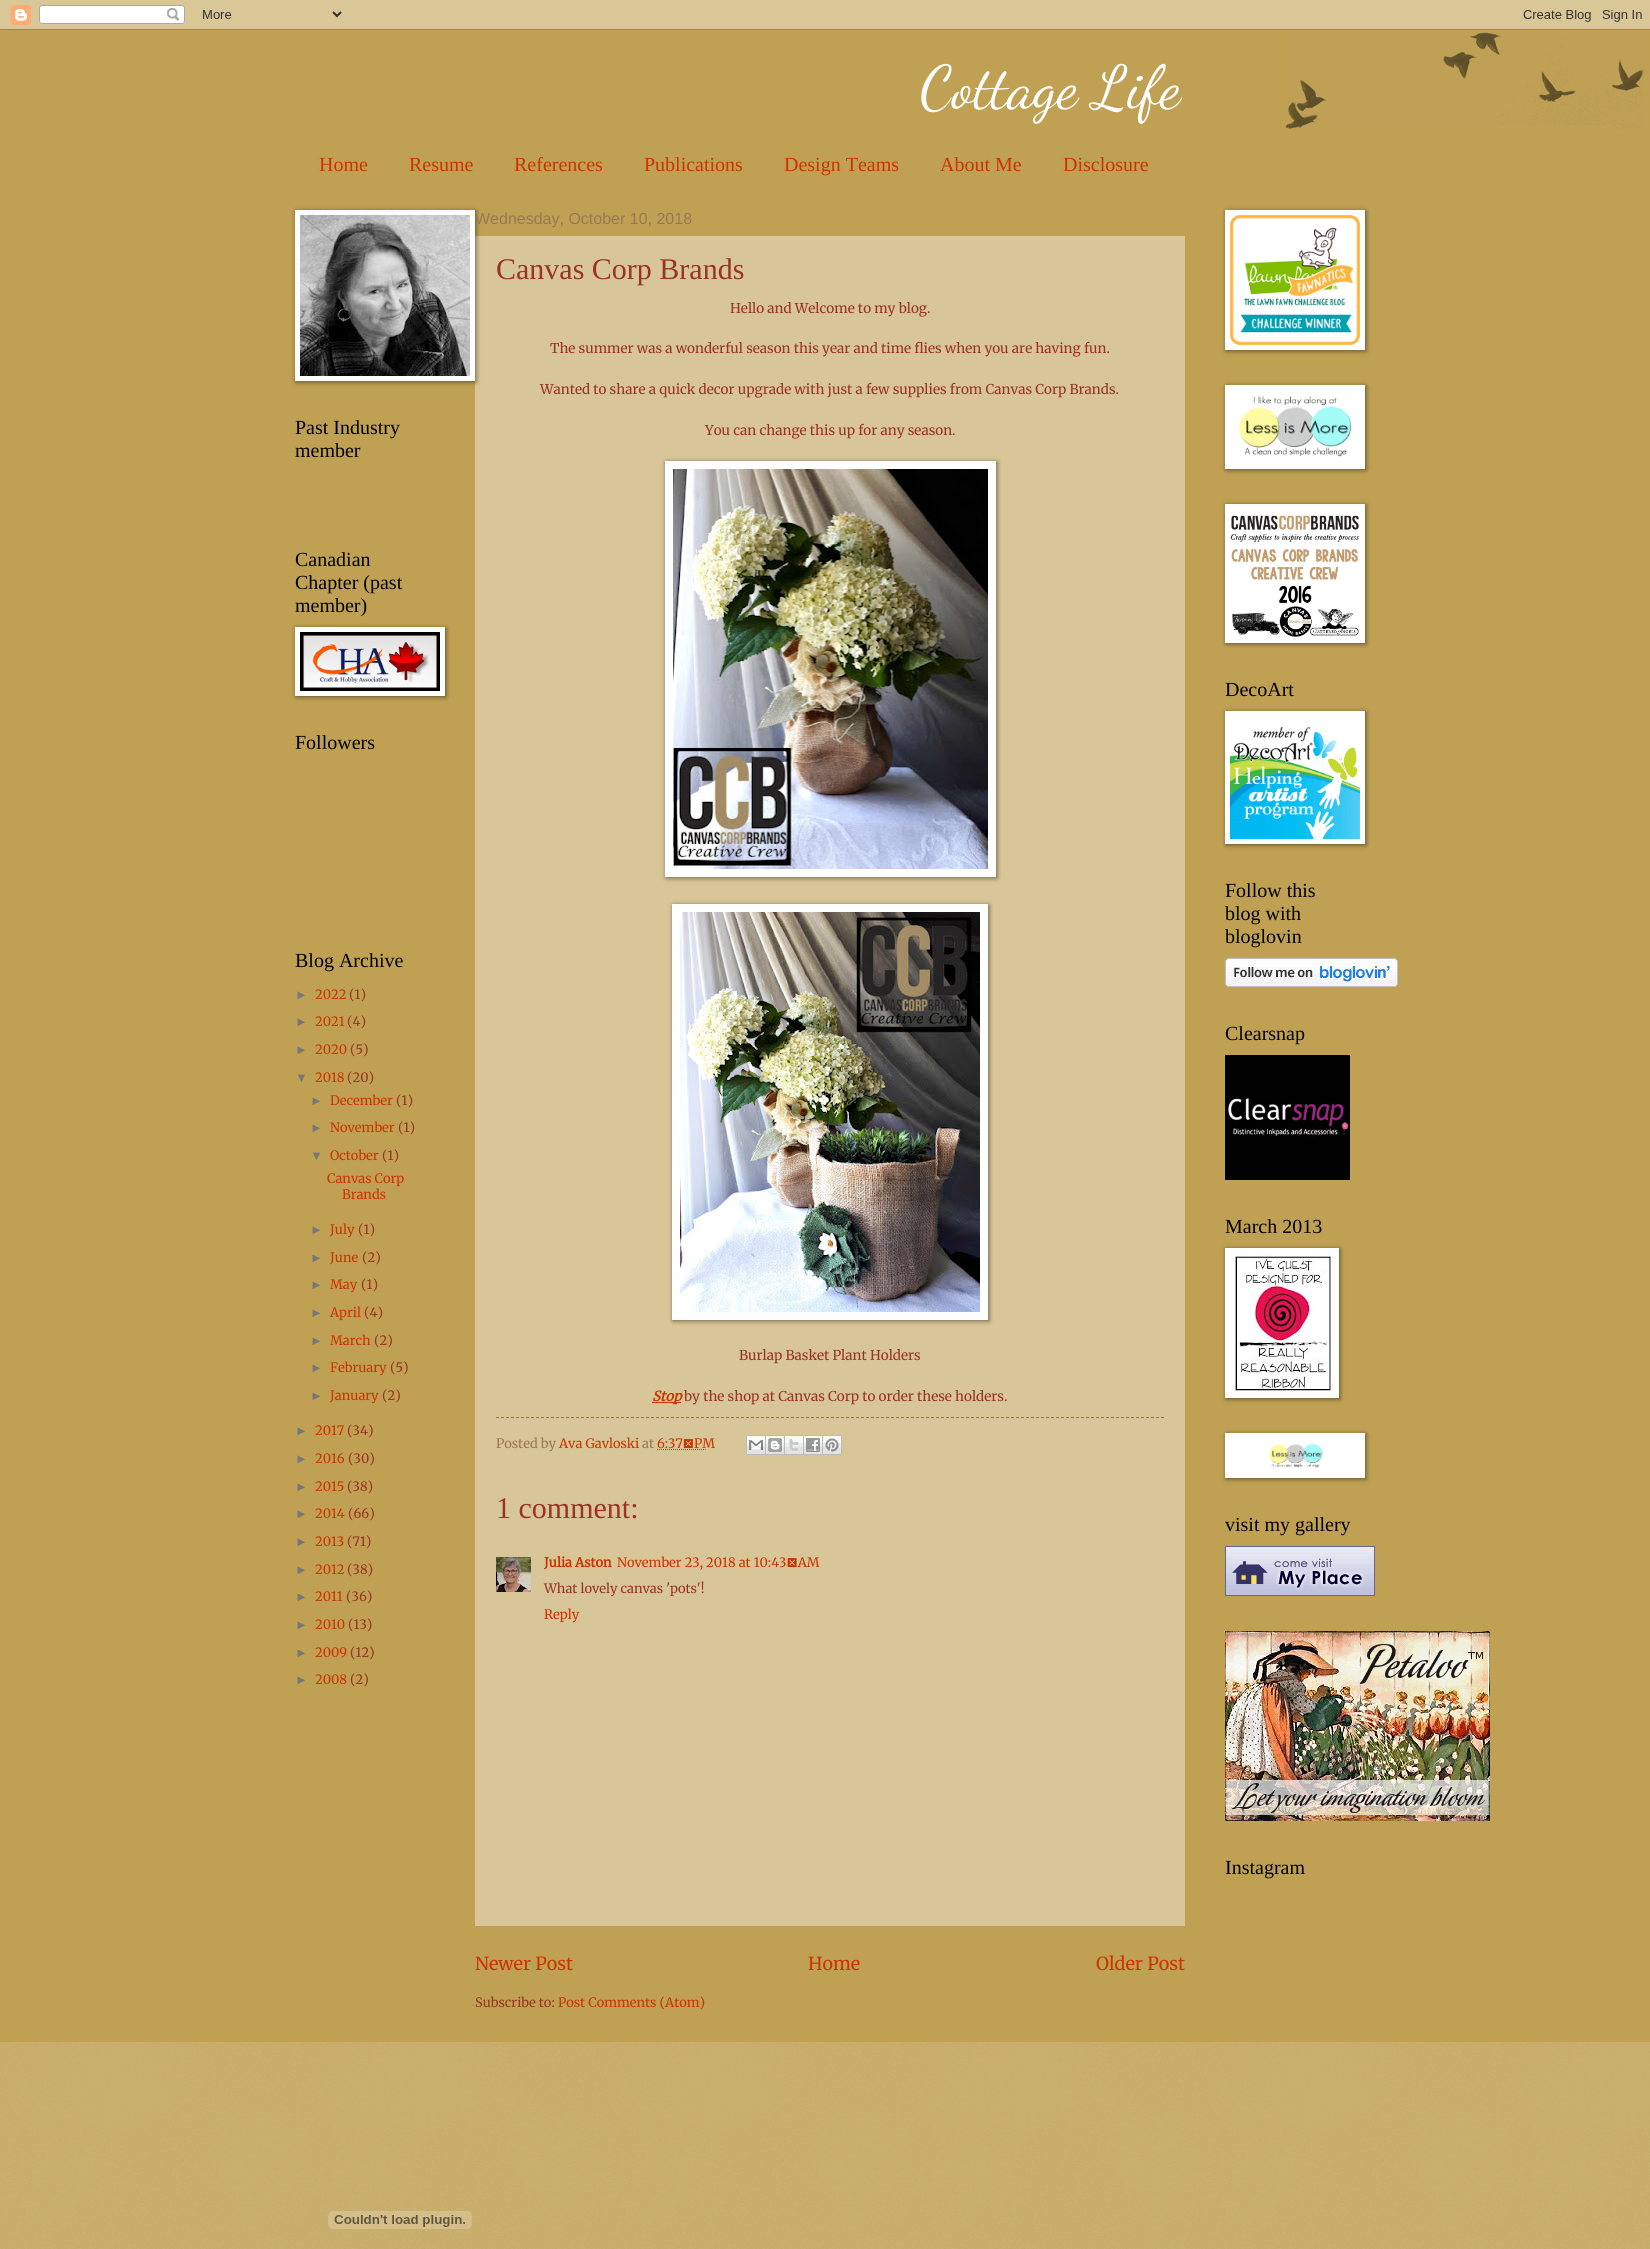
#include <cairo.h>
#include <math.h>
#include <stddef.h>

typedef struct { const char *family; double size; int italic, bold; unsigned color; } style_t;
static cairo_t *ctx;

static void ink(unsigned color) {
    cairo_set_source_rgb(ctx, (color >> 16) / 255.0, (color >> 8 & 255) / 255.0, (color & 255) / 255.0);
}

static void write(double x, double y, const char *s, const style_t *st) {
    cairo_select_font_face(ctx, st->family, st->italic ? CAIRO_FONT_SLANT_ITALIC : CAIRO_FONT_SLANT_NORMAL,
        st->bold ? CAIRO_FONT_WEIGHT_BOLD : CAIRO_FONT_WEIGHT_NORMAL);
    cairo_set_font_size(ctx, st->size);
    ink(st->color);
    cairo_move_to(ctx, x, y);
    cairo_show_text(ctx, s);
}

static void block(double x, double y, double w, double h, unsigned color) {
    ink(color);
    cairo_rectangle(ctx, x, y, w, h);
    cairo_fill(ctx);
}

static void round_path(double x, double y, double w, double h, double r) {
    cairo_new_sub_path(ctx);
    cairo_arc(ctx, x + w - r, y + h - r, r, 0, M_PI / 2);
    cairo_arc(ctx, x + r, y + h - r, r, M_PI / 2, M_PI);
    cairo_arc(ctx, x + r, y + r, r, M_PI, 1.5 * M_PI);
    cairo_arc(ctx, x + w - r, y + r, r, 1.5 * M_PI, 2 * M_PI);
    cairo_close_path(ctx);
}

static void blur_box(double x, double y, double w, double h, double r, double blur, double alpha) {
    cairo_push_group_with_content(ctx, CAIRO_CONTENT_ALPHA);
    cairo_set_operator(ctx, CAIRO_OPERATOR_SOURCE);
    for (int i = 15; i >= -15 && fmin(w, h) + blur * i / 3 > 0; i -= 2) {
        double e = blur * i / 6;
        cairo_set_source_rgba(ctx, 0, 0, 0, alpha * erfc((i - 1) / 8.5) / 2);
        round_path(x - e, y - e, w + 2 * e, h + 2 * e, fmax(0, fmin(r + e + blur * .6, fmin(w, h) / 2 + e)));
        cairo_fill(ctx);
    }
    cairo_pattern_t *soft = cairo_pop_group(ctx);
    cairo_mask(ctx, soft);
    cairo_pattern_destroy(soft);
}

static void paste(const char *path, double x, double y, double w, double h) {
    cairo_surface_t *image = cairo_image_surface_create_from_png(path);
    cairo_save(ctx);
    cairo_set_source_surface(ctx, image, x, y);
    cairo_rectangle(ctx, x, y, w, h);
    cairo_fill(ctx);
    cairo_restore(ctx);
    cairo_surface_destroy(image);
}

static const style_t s1 = {"Dancing Script", 60, 0, 0, 0xffffff};
static const style_t s2 = {"Liberation Serif", 20, 0, 0, 0xcc3300};
static const style_t s3 = {"Liberation Serif", 20, 0, 0, 0x000000};
static const style_t s4 = {"Liberation Sans", 12.9, 0, 0, 0x777777};
static const style_t s5 = {"Merriweather Light", 12.9, 0, 0, 0xcc3300};
static const style_t s6 = {"Merriweather Light", 12.9, 0, 0, 0x993322};
static const style_t s7 = {"Liberation Sans", 16, 0, 0, 0x997755};
static const style_t s8 = {"Liberation Serif", 30, 0, 0, 0x993322};
static const style_t s9 = {"Merriweather Light", 13.5, 0, 0, 0x993322};
static const style_t s10 = {"Merriweather", 13.5, 1, 1, 0xcc3300};
static const style_t s11 = {"Merriweather Light", 12.9, 0, 0, 0x997755};
static const style_t s12 = {"Merriweather", 12.9, 0, 1, 0xcc3300};
static const style_t s13 = {"Merriweather Light", 18, 0, 0, 0xcc3300};

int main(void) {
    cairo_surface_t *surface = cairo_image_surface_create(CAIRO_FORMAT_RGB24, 1650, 2249);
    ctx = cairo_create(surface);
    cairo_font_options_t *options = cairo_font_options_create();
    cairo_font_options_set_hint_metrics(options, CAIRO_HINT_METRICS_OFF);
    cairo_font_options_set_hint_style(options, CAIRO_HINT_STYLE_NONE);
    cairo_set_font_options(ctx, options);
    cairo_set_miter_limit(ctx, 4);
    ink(0xc0a154);
    cairo_paint(ctx);
    paste("pic1.png", 0, 0, 1650, 30);
    write(920, 107, "Cottage Life", &s1);
    write(319, 171, "Home", &s2);
    write(409, 171, "Resume", &s2);
    write(514, 171, "References", &s2);
    write(644, 171, "Publications", &s2);
    write(784, 171, "Design Teams", &s2);
    write(940, 171, "About Me", &s2);
    write(1063, 171, "Disclosure", &s2);
    block(475, 236, 710, 1690, 0xd9c698);
    ink(0x000000);
    blur_box(296, 211, 180, 171, 0, 2.5, 0.5);
    block(295, 210, 180, 171, 0xffffff);
    paste("pic2.png", 300, 215, 170, 161);
    write(295, 434, "Past Industry", &s3);
    write(295, 457, "member", &s3);
    write(295, 566, "Canadian", &s3);
    write(295, 589, "Chapter (past", &s3);
    write(295, 612, "member)", &s3);
    ink(0x000000);
    blur_box(296, 628, 150, 69, 0, 2.5, 0.5);
    block(295, 627, 150, 69, 0xffffff);
    paste("pic3.png", 300, 632, 140, 59);
    write(295, 749, "Followers", &s3);
    write(295, 967, "Blog Archive", &s3);
    write(295, 999, "►", &s4);
    write(315, 999, "2022", &s5);
    write(349, 999, "(1)", &s6);
    write(295, 1026, "►", &s4);
    write(315, 1026, "2021", &s5);
    write(347, 1026, "(4)", &s6);
    write(295, 1054, "►", &s4);
    write(315, 1054, "2020", &s5);
    write(350, 1054, "(5)", &s6);
    write(295, 1082, "▼", &s4);
    write(315, 1082, "2018", &s5);
    write(347, 1082, "(20)", &s6);
    write(310, 1105, "►", &s4);
    write(330, 1105, "December", &s5);
    write(396, 1105, "(1)", &s6);
    write(310, 1132, "►", &s4);
    write(330, 1132, "November", &s5);
    write(398, 1132, "(1)", &s6);
    write(310, 1160, "▼", &s4);
    write(330, 1160, "October", &s5);
    write(382, 1160, "(1)", &s6);
    write(327, 1183, "Canvas Corp", &s5);
    write(342, 1199, "Brands", &s5);
    write(310, 1234, "►", &s4);
    write(330, 1234, "July", &s5);
    write(358, 1234, "(1)", &s6);
    write(310, 1262, "►", &s4);
    write(330, 1262, "June", &s5);
    write(362, 1262, "(2)", &s6);
    write(310, 1289, "►", &s4);
    write(330, 1289, "May", &s5);
    write(361, 1289, "(1)", &s6);
    write(310, 1317, "►", &s4);
    write(330, 1317, "April", &s5);
    write(364, 1317, "(4)", &s6);
    write(310, 1345, "►", &s4);
    write(330, 1345, "March", &s5);
    write(374, 1345, "(2)", &s6);
    write(310, 1372, "►", &s4);
    write(330, 1372, "February", &s5);
    write(390, 1372, "(5)", &s6);
    write(310, 1400, "►", &s4);
    write(330, 1400, "January", &s5);
    write(382, 1400, "(2)", &s6);
    write(295, 1435, "►", &s4);
    write(315, 1435, "2017", &s5);
    write(347, 1435, "(34)", &s6);
    write(295, 1463, "►", &s4);
    write(315, 1463, "2016", &s5);
    write(348, 1463, "(30)", &s6);
    write(295, 1491, "►", &s4);
    write(315, 1491, "2015", &s5);
    write(347, 1491, "(38)", &s6);
    write(295, 1518, "►", &s4);
    write(315, 1518, "2014", &s5);
    write(348, 1518, "(66)", &s6);
    write(295, 1546, "►", &s4);
    write(315, 1546, "2013", &s5);
    write(347, 1546, "(71)", &s6);
    write(295, 1574, "►", &s4);
    write(315, 1574, "2012", &s5);
    write(347, 1574, "(38)", &s6);
    write(295, 1601, "►", &s4);
    write(315, 1601, "2011", &s5);
    write(346, 1601, "(36)", &s6);
    write(295, 1629, "►", &s4);
    write(315, 1629, "2010", &s5);
    write(348, 1629, "(13)", &s6);
    write(295, 1657, "►", &s4);
    write(315, 1657, "2009", &s5);
    write(350, 1657, "(12)", &s6);
    write(295, 1684, "►", &s4);
    write(315, 1684, "2008", &s5);
    write(350, 1684, "(2)", &s6);
    write(475, 224, "Wednesday, October 10, 2018", &s7);
    write(496, 279, "Canvas Corp Brands", &s8);
    write(730, 313, "Hello and Welcome to my blog.", &s9);
    write(550, 353, "The summer was a wonderful season this year and time flies when you are having fun.", &s9);
    write(540, 394, "Wanted to share a quick decor upgrade with just a few supplies from Canvas Corp Brands.", &s9);
    write(705, 435, "You can change this up for any season.", &s9);
    ink(0x000000);
    blur_box(666, 462, 331, 416, 0, 2.5, 0.5);
    block(665, 461, 331, 416, 0xffffff);
    paste("pic4.png", 673, 469, 315, 400);
    ink(0x000000);
    blur_box(673, 905, 316, 416, 0, 2.5, 0.5);
    block(672, 904, 316, 416, 0xffffff);
    paste("pic5.png", 680, 912, 300, 400);
    write(739, 1360, "Burlap Basket Plant Holders", &s9);
    block(652, 1402, 29, 1, 0xcc3300);
    write(652, 1401, "Stop", &s10);
    write(684, 1401, "by the shop at Canvas Corp to order these holders.", &s9);
    cairo_new_path(ctx);
    cairo_move_to(ctx, 496, 1417.5);
    cairo_line_to(ctx, 1164, 1417.5);
    ink(0x777777);
    cairo_set_line_width(ctx, 1);
    cairo_set_dash(ctx, (double[]){3, 2}, 2, 0);
    cairo_stroke(ctx);
    write(496, 1448, "Posted by", &s11);
    write(559, 1448, "Ava Gavloski", &s5);
    write(642, 1448, "at", &s11);
    write(657, 1448, "6:37 PM", &s5);
    cairo_new_path(ctx);
    cairo_move_to(ctx, 657, 1449.5);
    cairo_line_to(ctx, 705.5, 1449.5);
    cairo_set_dash(ctx, (double[]){1, 1}, 2, 0);
    cairo_stroke(ctx);
    paste("pic6.png", 746, 1435, 20, 20);
    paste("pic7.png", 766, 1435, 19, 20);
    paste("pic8.png", 785, 1435, 19, 20);
    paste("pic9.png", 804, 1435, 19, 20);
    paste("pic10.png", 823, 1435, 19, 20);
    write(496, 1518, "1 comment:", &s8);
    paste("pic11.png", 496, 1557, 35, 35);
    write(544, 1567, "Julia Aston", &s12);
    write(617, 1567, "November 23, 2018 at 10:43 AM", &s5);
    write(544, 1593, "What lovely canvas 'pots'!", &s6);
    write(544, 1619, "Reply", &s5);
    write(475, 1970, "Newer Post", &s13);
    write(808, 1970, "Home", &s13);
    write(1096, 1970, "Older Post", &s13);
    write(475, 2007, "Subscribe to:", &s6);
    write(558, 2007, "Post Comments (Atom)", &s5);
    ink(0x000000);
    blur_box(1226, 211, 140, 140, 0, 2.5, 0.5);
    block(1225, 210, 140, 140, 0xffffff);
    paste("pic12.png", 1230, 215, 130, 130);
    ink(0x000000);
    blur_box(1226, 386, 140, 84, 0, 2.5, 0.5);
    block(1225, 385, 140, 84, 0xffffff);
    paste("pic13.png", 1239, 396, 113, 61);
    ink(0x000000);
    blur_box(1226, 505, 140, 139, 0, 2.5, 0.5);
    block(1225, 504, 140, 139, 0xffffff);
    paste("pic14.png", 1230, 515, 130, 122);
    write(1225, 696, "DecoArt", &s3);
    ink(0x000000);
    blur_box(1226, 712, 140, 133, 0, 2.5, 0.5);
    block(1225, 711, 140, 133, 0xffffff);
    paste("pic15.png", 1230, 727, 130, 112);
    write(1225, 897, "Follow this", &s3);
    write(1225, 920, "blog with", &s3);
    write(1225, 943, "bloglovin", &s3);
    paste("pic16.png", 1225, 958, 173, 29);
    write(1225, 1040, "Clearsnap", &s3);
    paste("pic17.png", 1225, 1055, 125, 125);
    write(1225, 1233, "March 2013", &s3);
    ink(0x000000);
    blur_box(1226, 1249, 114, 150, 0, 2.5, 0.5);
    block(1225, 1248, 114, 150, 0xffffff);
    paste("pic18.png", 1231, 1253, 102, 139);
    ink(0x000000);
    blur_box(1226, 1434, 140, 45, 0, 2.5, 0.5);
    block(1225, 1433, 140, 45, 0xffffff);
    paste("pic19.png", 1268, 1443, 55, 25);
    write(1225, 1531, "visit my gallery", &s3);
    paste("pic20.png", 1225, 1546, 150, 50);
    paste("pic21.png", 1225, 1631, 265, 190);
    write(1225, 1874, "Instagram", &s3);
    paste("pic22.png", 0, 2042, 1650, 207);
    paste("pic23.png", 328, 2211, 144, 18);
    paste("pic24.png", 1285, 32, 359, 97);
    cairo_surface_write_to_png(surface, "screenshot.png");
    cairo_font_options_destroy(options);
    cairo_destroy(ctx);
    cairo_surface_destroy(surface);
    return 0;
}
